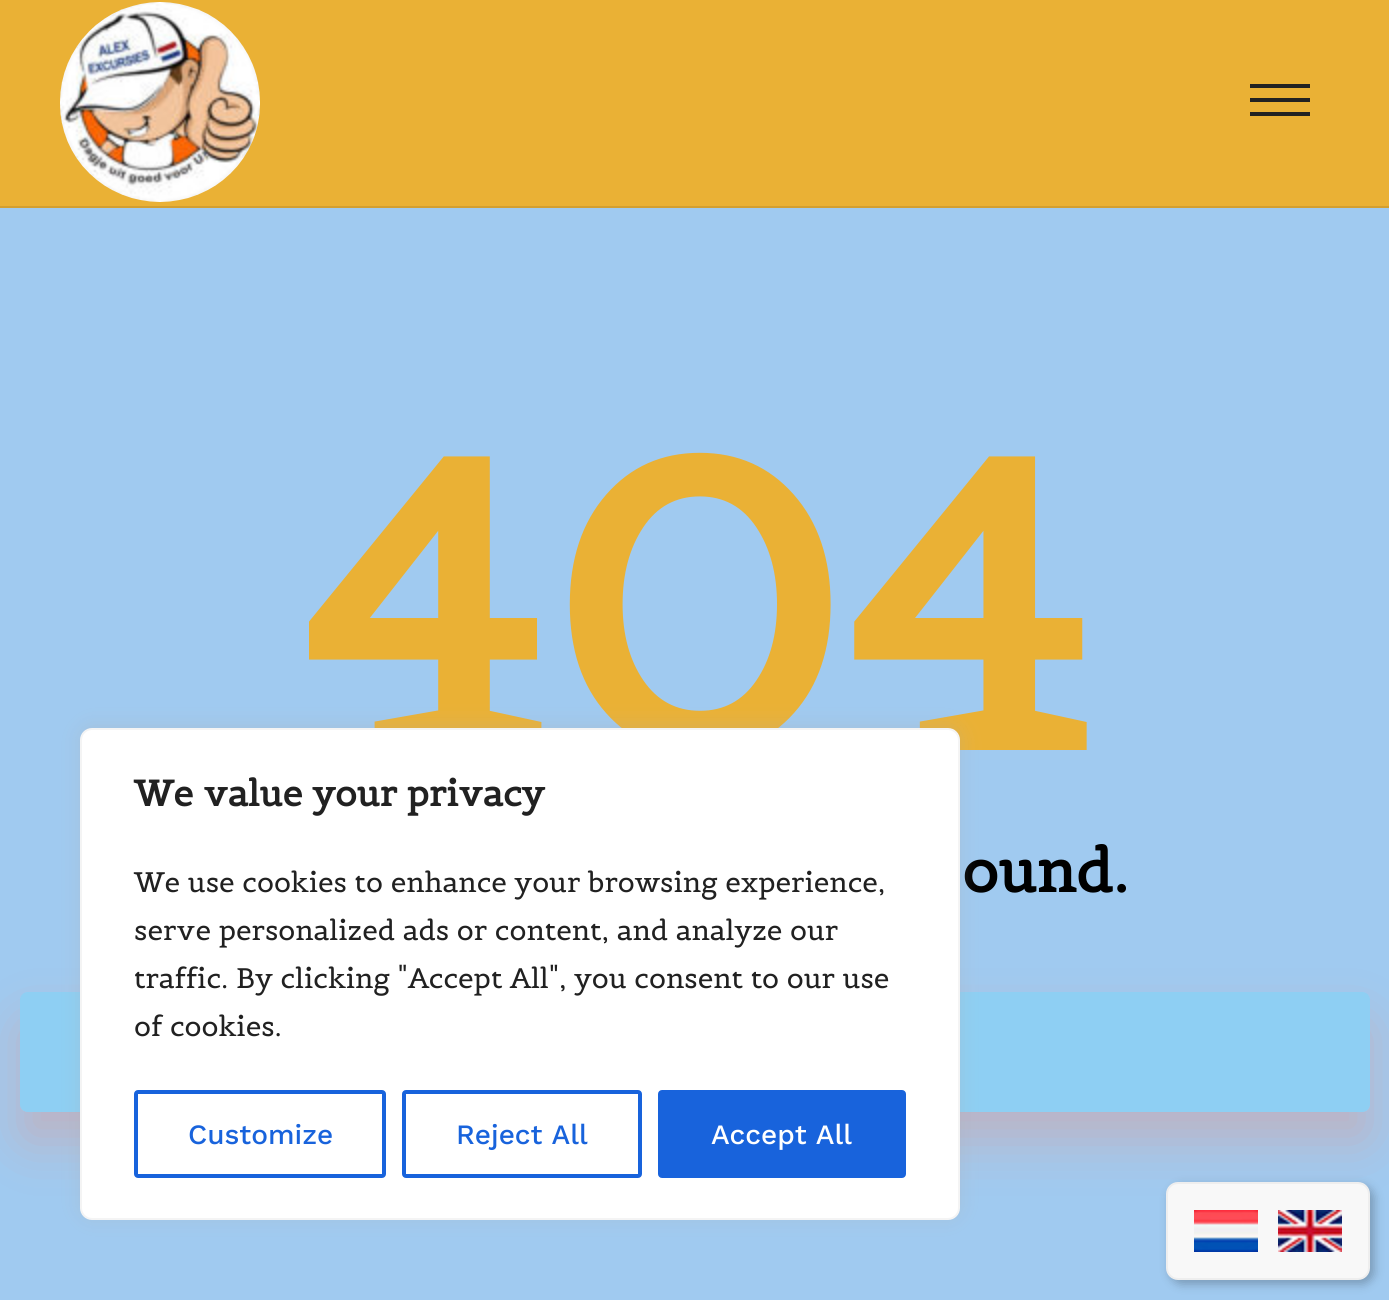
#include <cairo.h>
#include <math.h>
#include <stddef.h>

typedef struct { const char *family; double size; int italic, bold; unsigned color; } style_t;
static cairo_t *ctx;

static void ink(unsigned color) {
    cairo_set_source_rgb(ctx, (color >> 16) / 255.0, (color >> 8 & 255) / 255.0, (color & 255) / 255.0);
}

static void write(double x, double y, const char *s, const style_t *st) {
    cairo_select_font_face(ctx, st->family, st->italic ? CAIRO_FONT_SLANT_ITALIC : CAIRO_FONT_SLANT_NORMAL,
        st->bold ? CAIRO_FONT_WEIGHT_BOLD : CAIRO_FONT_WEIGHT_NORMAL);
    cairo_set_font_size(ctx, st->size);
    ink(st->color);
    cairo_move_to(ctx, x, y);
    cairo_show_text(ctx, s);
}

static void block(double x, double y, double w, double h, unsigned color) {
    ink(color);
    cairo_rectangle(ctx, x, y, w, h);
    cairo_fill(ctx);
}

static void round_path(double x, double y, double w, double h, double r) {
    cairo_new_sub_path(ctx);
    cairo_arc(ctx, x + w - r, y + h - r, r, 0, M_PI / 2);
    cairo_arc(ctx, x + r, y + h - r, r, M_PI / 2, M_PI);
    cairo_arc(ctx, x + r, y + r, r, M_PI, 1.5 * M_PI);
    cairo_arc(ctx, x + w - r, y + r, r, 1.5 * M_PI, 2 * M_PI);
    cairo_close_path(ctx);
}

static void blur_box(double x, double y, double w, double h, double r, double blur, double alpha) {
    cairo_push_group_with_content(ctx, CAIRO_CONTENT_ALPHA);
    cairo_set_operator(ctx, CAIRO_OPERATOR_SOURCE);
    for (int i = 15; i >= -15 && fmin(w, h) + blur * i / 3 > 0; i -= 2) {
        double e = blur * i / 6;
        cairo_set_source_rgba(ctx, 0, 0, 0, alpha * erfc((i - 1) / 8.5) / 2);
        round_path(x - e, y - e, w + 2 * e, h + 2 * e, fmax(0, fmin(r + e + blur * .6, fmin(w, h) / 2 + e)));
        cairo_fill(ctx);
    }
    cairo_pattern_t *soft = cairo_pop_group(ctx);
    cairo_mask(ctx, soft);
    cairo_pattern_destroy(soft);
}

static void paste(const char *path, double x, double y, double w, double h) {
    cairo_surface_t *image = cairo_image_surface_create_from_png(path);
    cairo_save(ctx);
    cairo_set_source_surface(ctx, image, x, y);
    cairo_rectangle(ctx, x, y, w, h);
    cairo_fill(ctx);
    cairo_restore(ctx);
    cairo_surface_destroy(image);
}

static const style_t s1 = {"Belgrano", 400, 0, 1, 0xeab135};
static const style_t s2 = {"Belgrano", 60, 0, 1, 0x000000};
static const style_t s3 = {"Belgrano", 36, 0, 1, 0x212121};
static const style_t s4 = {"Belgrano", 28, 0, 0, 0x212121};
static const style_t s5 = {"Work Sans Medium", 28, 0, 0, 0x1863dc};
static const style_t s6 = {"Work Sans Medium", 28, 0, 0, 0xffffff};

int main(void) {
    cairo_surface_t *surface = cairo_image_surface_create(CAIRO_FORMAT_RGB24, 1389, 1300);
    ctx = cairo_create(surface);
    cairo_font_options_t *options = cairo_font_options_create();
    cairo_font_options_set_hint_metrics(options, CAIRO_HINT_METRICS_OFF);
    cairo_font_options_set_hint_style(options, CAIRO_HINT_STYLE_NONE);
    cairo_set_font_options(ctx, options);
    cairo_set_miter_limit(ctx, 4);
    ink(0xa0caf0);
    cairo_paint(ctx);
    block(0, 0, 1389, 206, 0xeab135);
    block(0, 206, 1389, 2, 0xd39f30);
    paste("pic1.png", 60, 2, 200, 200);
    block(1250, 84, 60, 4, 0x222222);
    block(1250, 98, 60, 4, 0x222222);
    block(1250, 112, 60, 4, 0x222222);
    write(297, 750, "404", &s1);
    write(962, 892, "ound.", &s2);
    cairo_save(ctx);
    cairo_set_fill_rule(ctx, CAIRO_FILL_RULE_EVEN_ODD);
    cairo_new_path(ctx);
    cairo_move_to(ctx, 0, 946);
    cairo_line_to(ctx, 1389, 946);
    cairo_line_to(ctx, 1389, 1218);
    cairo_line_to(ctx, 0, 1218);
    cairo_close_path(ctx);
    cairo_move_to(ctx, 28, 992);
    cairo_line_to(ctx, 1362, 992);
    cairo_curve_to(ctx, 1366.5, 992, 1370, 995.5, 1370, 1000);
    cairo_line_to(ctx, 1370, 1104);
    cairo_curve_to(ctx, 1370, 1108.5, 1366.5, 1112, 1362, 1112);
    cairo_line_to(ctx, 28, 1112);
    cairo_curve_to(ctx, 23.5, 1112, 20, 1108.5, 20, 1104);
    cairo_line_to(ctx, 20, 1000);
    cairo_curve_to(ctx, 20, 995.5, 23.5, 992, 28, 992);
    cairo_close_path(ctx);
    cairo_clip(ctx);
    ink(0xff7c5b);
    blur_box(20, 1022, 1350, 120, 8, 25, 0.3);
    cairo_restore(ctx);
    cairo_set_source_rgba(ctx, 0.443, 0.843, 0.969, 0.37);
    round_path(20, 992, 1350, 120, 8);
    cairo_fill(ctx);
    ink(0xacabab);
    blur_box(80, 726, 880, 492, 12, 10, 0.3);
    ink(0xffffff);
    round_path(81, 729, 878, 490, 11);
    cairo_fill_preserve(ctx);
    ink(0xf4f4f4);
    cairo_stroke(ctx);
    write(134, 806, "We value your privacy", &s3);
    write(134, 892, "We use cookies to enhance your browsing experience,", &s4);
    write(134, 940, "serve personalized ads or content, and analyze our", &s4);
    write(134, 988, "traffic. By clicking \"Accept All\", you consent to our use", &s4);
    write(134, 1036, "of cookies.", &s4);
    round_path(136, 1092, 248, 84, 2);
    ink(0x1863dc);
    cairo_set_line_width(ctx, 4);
    cairo_stroke(ctx);
    write(188, 1144, "Customize", &s5);
    round_path(404, 1092, 236, 84, 2);
    cairo_stroke(ctx);
    write(456, 1144, "Reject All", &s5);
    round_path(660, 1092, 244, 84, 2);
    cairo_fill_preserve(ctx);
    cairo_stroke(ctx);
    write(711, 1144, "Accept All", &s6);
    ink(0x000000);
    blur_box(1170, 1186, 204, 98, 12, 5, 0.25);
    ink(0xf8f8f8);
    round_path(1167, 1183, 202, 96, 11);
    cairo_fill_preserve(ctx);
    ink(0xeeeeee);
    cairo_set_line_width(ctx, 2);
    cairo_stroke(ctx);
    paste("pic2.png", 1194, 1210, 64, 42);
    paste("pic3.png", 1278, 1210, 64, 42);
    cairo_surface_write_to_png(surface, "screenshot.png");
    cairo_font_options_destroy(options);
    cairo_destroy(ctx);
    cairo_surface_destroy(surface);
    return 0;
}
